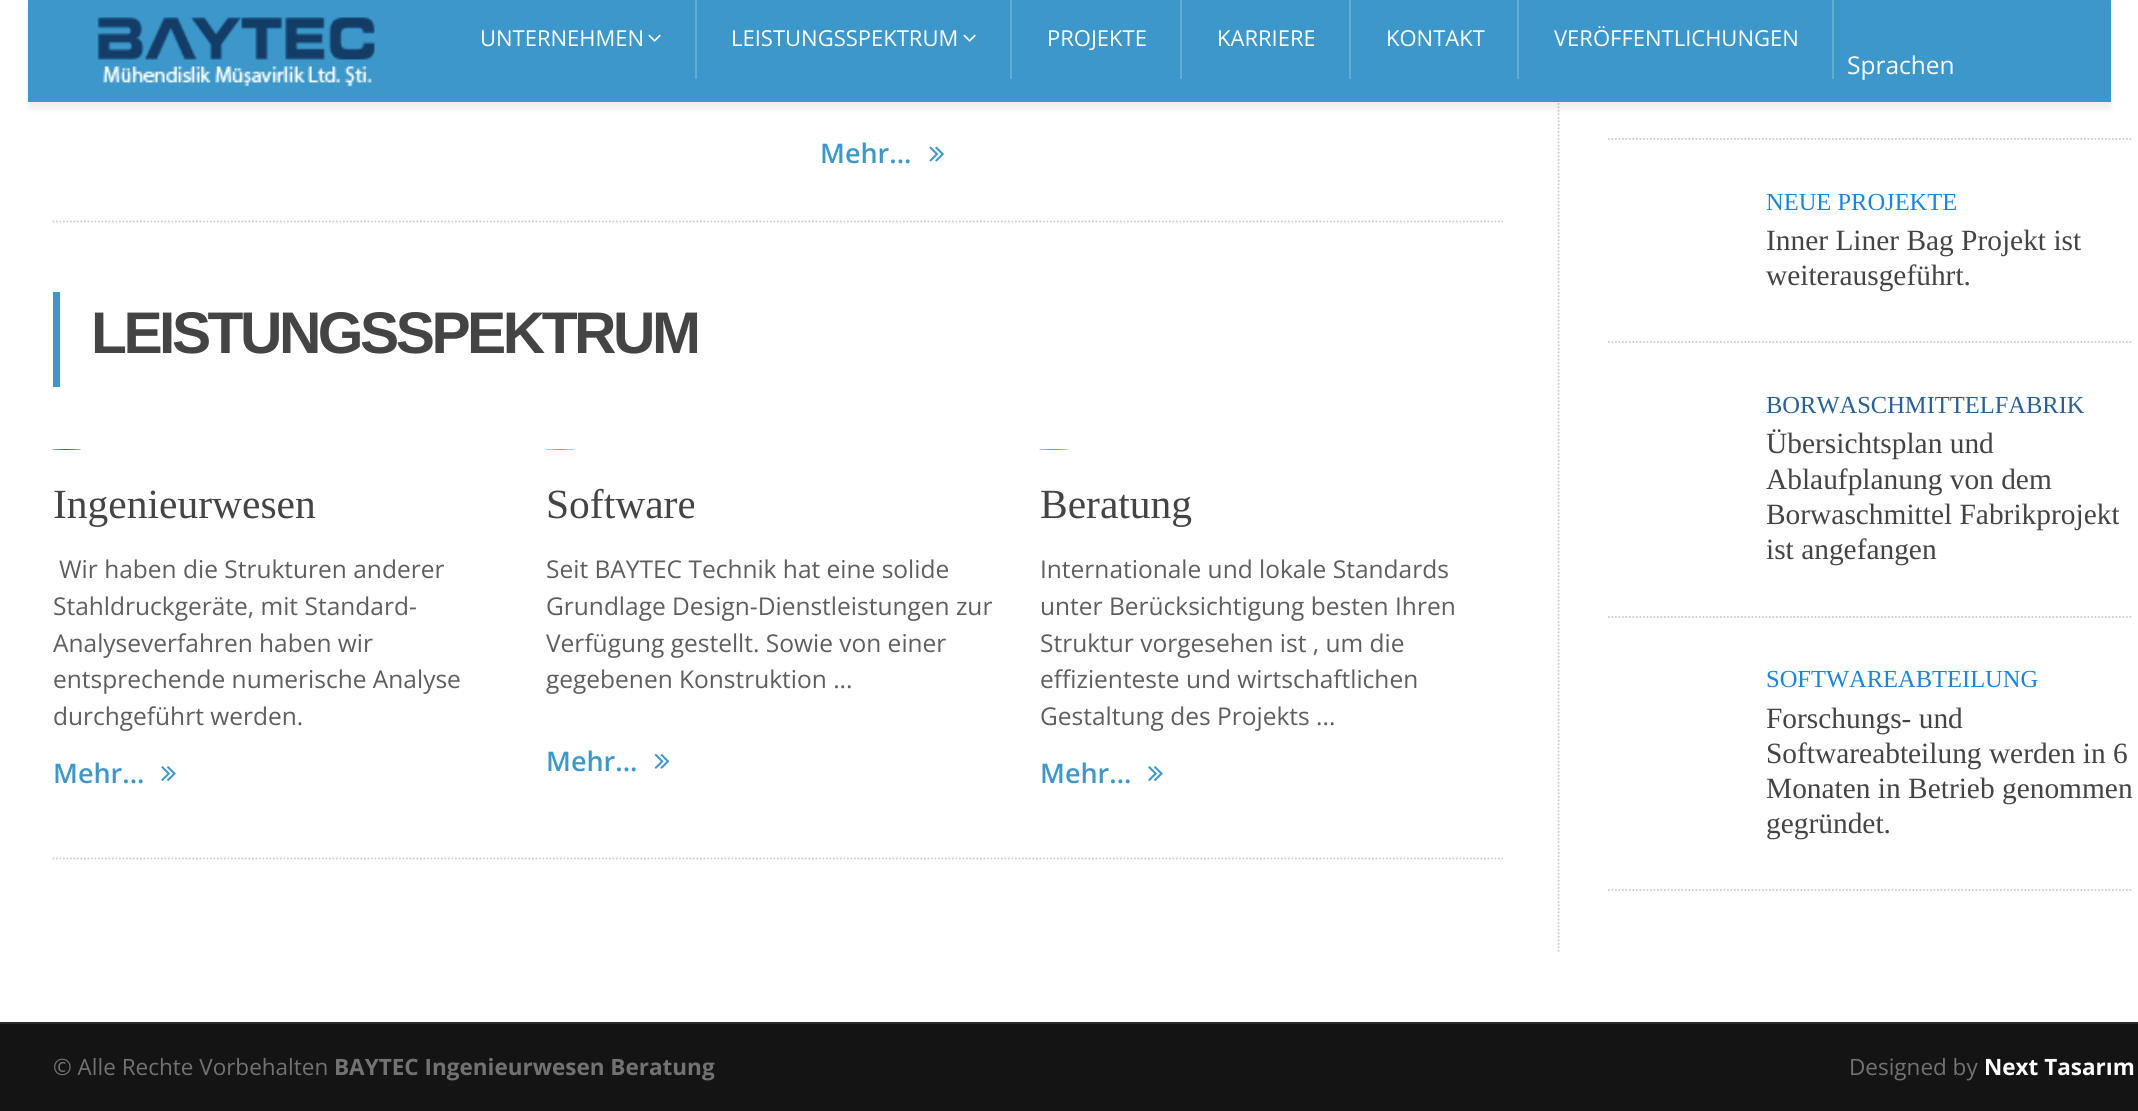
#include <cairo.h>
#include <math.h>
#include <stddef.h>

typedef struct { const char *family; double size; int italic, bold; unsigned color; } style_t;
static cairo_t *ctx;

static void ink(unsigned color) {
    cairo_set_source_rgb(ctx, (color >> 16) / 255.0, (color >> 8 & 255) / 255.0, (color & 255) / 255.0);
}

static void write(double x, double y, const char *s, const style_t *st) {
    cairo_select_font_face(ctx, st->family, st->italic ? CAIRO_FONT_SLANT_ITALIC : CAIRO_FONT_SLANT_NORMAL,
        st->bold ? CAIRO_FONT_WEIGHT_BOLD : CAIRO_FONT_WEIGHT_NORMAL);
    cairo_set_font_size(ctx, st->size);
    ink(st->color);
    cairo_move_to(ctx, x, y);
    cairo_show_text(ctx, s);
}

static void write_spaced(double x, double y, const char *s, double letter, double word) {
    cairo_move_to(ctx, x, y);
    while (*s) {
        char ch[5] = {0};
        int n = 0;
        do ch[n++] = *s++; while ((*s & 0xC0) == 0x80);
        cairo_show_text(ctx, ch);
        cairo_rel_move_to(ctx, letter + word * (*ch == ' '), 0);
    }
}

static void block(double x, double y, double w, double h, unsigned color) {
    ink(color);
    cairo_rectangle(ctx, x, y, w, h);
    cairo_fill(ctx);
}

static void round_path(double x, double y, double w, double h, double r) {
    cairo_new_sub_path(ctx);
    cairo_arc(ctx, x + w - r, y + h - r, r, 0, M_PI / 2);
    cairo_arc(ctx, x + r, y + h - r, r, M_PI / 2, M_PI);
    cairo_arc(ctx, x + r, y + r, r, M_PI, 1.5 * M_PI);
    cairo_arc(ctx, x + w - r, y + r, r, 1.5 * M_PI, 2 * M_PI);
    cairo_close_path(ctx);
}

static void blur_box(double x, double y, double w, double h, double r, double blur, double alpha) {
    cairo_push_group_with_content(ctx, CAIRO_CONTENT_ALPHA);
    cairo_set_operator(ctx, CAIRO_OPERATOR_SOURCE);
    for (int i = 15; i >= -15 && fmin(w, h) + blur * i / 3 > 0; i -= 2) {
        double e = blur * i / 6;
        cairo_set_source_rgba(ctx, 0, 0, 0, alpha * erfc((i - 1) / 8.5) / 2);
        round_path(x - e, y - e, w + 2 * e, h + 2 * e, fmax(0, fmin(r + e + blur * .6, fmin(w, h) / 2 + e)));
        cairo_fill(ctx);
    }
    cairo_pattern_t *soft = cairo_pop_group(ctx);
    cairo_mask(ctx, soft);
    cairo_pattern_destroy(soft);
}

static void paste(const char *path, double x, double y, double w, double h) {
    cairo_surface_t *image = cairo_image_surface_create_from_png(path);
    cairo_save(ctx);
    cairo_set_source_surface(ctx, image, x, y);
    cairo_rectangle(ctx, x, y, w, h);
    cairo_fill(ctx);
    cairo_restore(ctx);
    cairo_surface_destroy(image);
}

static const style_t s1 = {"Open Sans", 22, 0, 0, 0xffffff};
static const style_t s2 = {"Open Sans", 24.5, 0, 0, 0xffffff};
static const style_t s3 = {"Open Sans SemiBold", 27, 0, 0, 0x3c98ca};
static const style_t s4 = {"Liberation Serif", 41.5, 0, 0, 0x444444};
static const style_t s5 = {"Open Sans", 24.5, 0, 0, 0x5e5e5e};
static const style_t s6 = {"Liberation Serif", 24.5, 0, 0, 0x1985e1};
static const style_t s7 = {"Liberation Serif", 29.4, 0, 0, 0x444444};
static const style_t s8 = {"Liberation Serif", 24.5, 0, 0, 0x276197};
static const style_t s9 = {"Open Sans", 22.5, 0, 0, 0x727272};
static const style_t s10 = {"Open Sans", 22.5, 0, 1, 0x727272};
static const style_t s11 = {"Open Sans", 22.5, 0, 1, 0xffffff};

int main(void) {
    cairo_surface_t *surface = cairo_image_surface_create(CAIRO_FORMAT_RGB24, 2138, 1111);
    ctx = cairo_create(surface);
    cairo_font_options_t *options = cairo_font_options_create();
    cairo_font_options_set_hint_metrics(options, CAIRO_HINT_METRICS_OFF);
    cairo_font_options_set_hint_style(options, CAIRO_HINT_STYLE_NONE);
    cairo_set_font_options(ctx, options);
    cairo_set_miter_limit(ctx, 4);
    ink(0xffffff);
    cairo_paint(ctx);
    cairo_new_path(ctx);
    cairo_move_to(ctx, 1558.5, -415);
    cairo_line_to(ctx, 1558.5, 952);
    ink(0xcccccc);
    cairo_set_line_width(ctx, 1.8);
    cairo_set_dash(ctx, (double[]){1.75, 1.75}, 2, 0);
    cairo_stroke(ctx);
    ink(0x000000);
    blur_box(28, 9, 2083, 101, 0, 2.5, 0.06);
    block(28, 0, 2083, 102, 0x3c98ca);
    paste("pic1.png", 97, 17, 278, 70);
    block(695, 0, 2, 79, 0x63add5);
    write(480, 46, "UNTERNEHMEN", &s1);
    paste("pic2.png", 648, 34, 13, 8);
    block(1010, 0, 2, 79, 0x63add5);
    write(731, 46, "LEISTUNGSSPEKTRUM", &s1);
    paste("pic2.png", 963, 34, 13, 8);
    block(1180, 0, 2, 79, 0x63add5);
    write(1047, 46, "PROJEKTE", &s1);
    block(1349, 0, 2, 79, 0x63add5);
    write(1217, 46, "KARRIERE", &s1);
    block(1517, 0, 2, 79, 0x63add5);
    write(1386, 46, "KONTAKT", &s1);
    block(1832, 0, 2, 79, 0x63add5);
    write(1554, 46, "VERÖFFENTLICHUNGEN", &s1);
    write(1847, 74, "Sprachen", &s2);
    cairo_new_path(ctx);
    cairo_move_to(ctx, 52.5, 221.5);
    cairo_line_to(ctx, 1503, 221.5);
    ink(0xcccccc);
    cairo_stroke(ctx);
    write(820, 163, "Mehr...", &s3);
    paste("pic3.png", 929, 146, 15, 16);
    cairo_new_path(ctx);
    cairo_move_to(ctx, 52.5, 858.5);
    cairo_line_to(ctx, 1503, 858.5);
    ink(0xcccccc);
    cairo_stroke(ctx);
    block(53, 292, 7, 95, 0x3c98ca);
    cairo_select_font_face(ctx, "Liberation Sans", CAIRO_FONT_SLANT_NORMAL, CAIRO_FONT_WEIGHT_BOLD);
    cairo_set_font_size(ctx, 58.75);
    ink(0x444444);
    write_spaced(91, 353, "LEISTUNGSSPEKTRUM", -3.5, 0);
    ink(0x276197);
    cairo_new_path(ctx);
    cairo_move_to(ctx, 52.5, 450);
    cairo_line_to(ctx, 52.5, 449.5);
    cairo_line_to(ctx, 66.5, 449);
    cairo_line_to(ctx, 80.5, 449.5);
    cairo_line_to(ctx, 80.5, 450);
    cairo_close_path(ctx);
    cairo_fill(ctx);
    write(53, 518, "Ingenieurwesen", &s4);
    write(59, 578, "Wir haben die Strukturen anderer", &s5);
    write(53, 615, "Stahldruckgeräte, mit Standard-", &s5);
    write(53, 652, "Analyseverfahren haben wir", &s5);
    write(53, 688, "entsprechende numerische Analyse", &s5);
    write(53, 725, "durchgeführt werden.", &s5);
    write(53, 783, "Mehr...", &s3);
    paste("pic4.png", 161, 766, 15, 15);
    ink(0xef8722);
    cairo_new_path(ctx);
    cairo_move_to(ctx, 546, 450);
    cairo_line_to(ctx, 546, 449.5);
    cairo_line_to(ctx, 560, 449);
    cairo_line_to(ctx, 574, 449.5);
    cairo_line_to(ctx, 574, 450);
    cairo_close_path(ctx);
    cairo_fill(ctx);
    write(546, 518, "Software", &s4);
    write(546, 578, "Seit BAYTEC Technik hat eine solide", &s5);
    write(546, 615, "Grundlage Design-Dienstleistungen zur", &s5);
    write(546, 652, "Verfügung gestellt. Sowie von einer", &s5);
    write(546, 688, "gegebenen Konstruktion ...", &s5);
    write(546, 771, "Mehr...", &s3);
    paste("pic5.png", 654, 753, 16, 16);
    ink(0x6bab32);
    cairo_new_path(ctx);
    cairo_move_to(ctx, 1039.5, 450);
    cairo_line_to(ctx, 1039.5, 449.5);
    cairo_line_to(ctx, 1053.5, 449);
    cairo_line_to(ctx, 1067.5, 449.5);
    cairo_line_to(ctx, 1067.5, 450);
    cairo_close_path(ctx);
    cairo_fill(ctx);
    write(1040, 518, "Beratung", &s4);
    write(1040, 578, "Internationale und lokale Standards", &s5);
    write(1040, 615, "unter Berücksichtigung besten Ihren", &s5);
    write(1040, 652, "Struktur vorgesehen ist , um die", &s5);
    write(1040, 688, "effizienteste und wirtschaftlichen", &s5);
    write(1040, 725, "Gestaltung des Projekts ...", &s5);
    write(1040, 783, "Mehr...", &s3);
    paste("pic4.png", 1148, 766, 15, 15);
    cairo_new_path(ctx);
    cairo_move_to(ctx, 1608, 890);
    cairo_line_to(ctx, 2133, 890);
    ink(0xcccccc);
    cairo_stroke(ctx);
    cairo_new_path(ctx);
    cairo_move_to(ctx, 1608, 139);
    cairo_line_to(ctx, 2133, 139);
    cairo_stroke(ctx);
    cairo_new_path(ctx);
    cairo_move_to(ctx, 1608, 342);
    cairo_line_to(ctx, 2133, 342);
    cairo_stroke(ctx);
    write(1766, 210, "NEUE PROJEKTE", &s6);
    write(1766, 250, "Inner Liner Bag Projekt ist", &s7);
    write(1766, 285, "weiterausgeführt.", &s7);
    cairo_new_path(ctx);
    cairo_move_to(ctx, 1608, 617);
    cairo_line_to(ctx, 2133, 617);
    ink(0xcccccc);
    cairo_stroke(ctx);
    write(1766, 413, "BORWASCHMITTELFABRIK", &s8);
    write(1766, 453, "Übersichtsplan und", &s7);
    write(1766, 489, "Ablaufplanung von dem", &s7);
    write(1766, 524, "Borwaschmittel Fabrikprojekt", &s7);
    write(1766, 559, "ist angefangen", &s7);
    write(1766, 687, "SOFTWAREABTEILUNG", &s6);
    write(1766, 728, "Forschungs- und", &s7);
    write(1766, 763, "Softwareabteilung werden in 6", &s7);
    write(1766, 798, "Monaten in Betrieb genommen", &s7);
    write(1766, 833, "gegründet.", &s7);
    block(0, 1024, 2138, 87, 0x141414);
    block(0, 1022, 2138, 2, 0x2c2c2c);
    write(53, 1075, "© Alle Rechte Vorbehalten", &s9);
    write(334, 1075, "BAYTEC Ingenieurwesen Beratung", &s10);
    write(1849, 1075, "Designed by", &s9);
    write(1984, 1075, "Next Tasarım", &s11);
    cairo_surface_write_to_png(surface, "screenshot.png");
    cairo_font_options_destroy(options);
    cairo_destroy(ctx);
    cairo_surface_destroy(surface);
    return 0;
}
